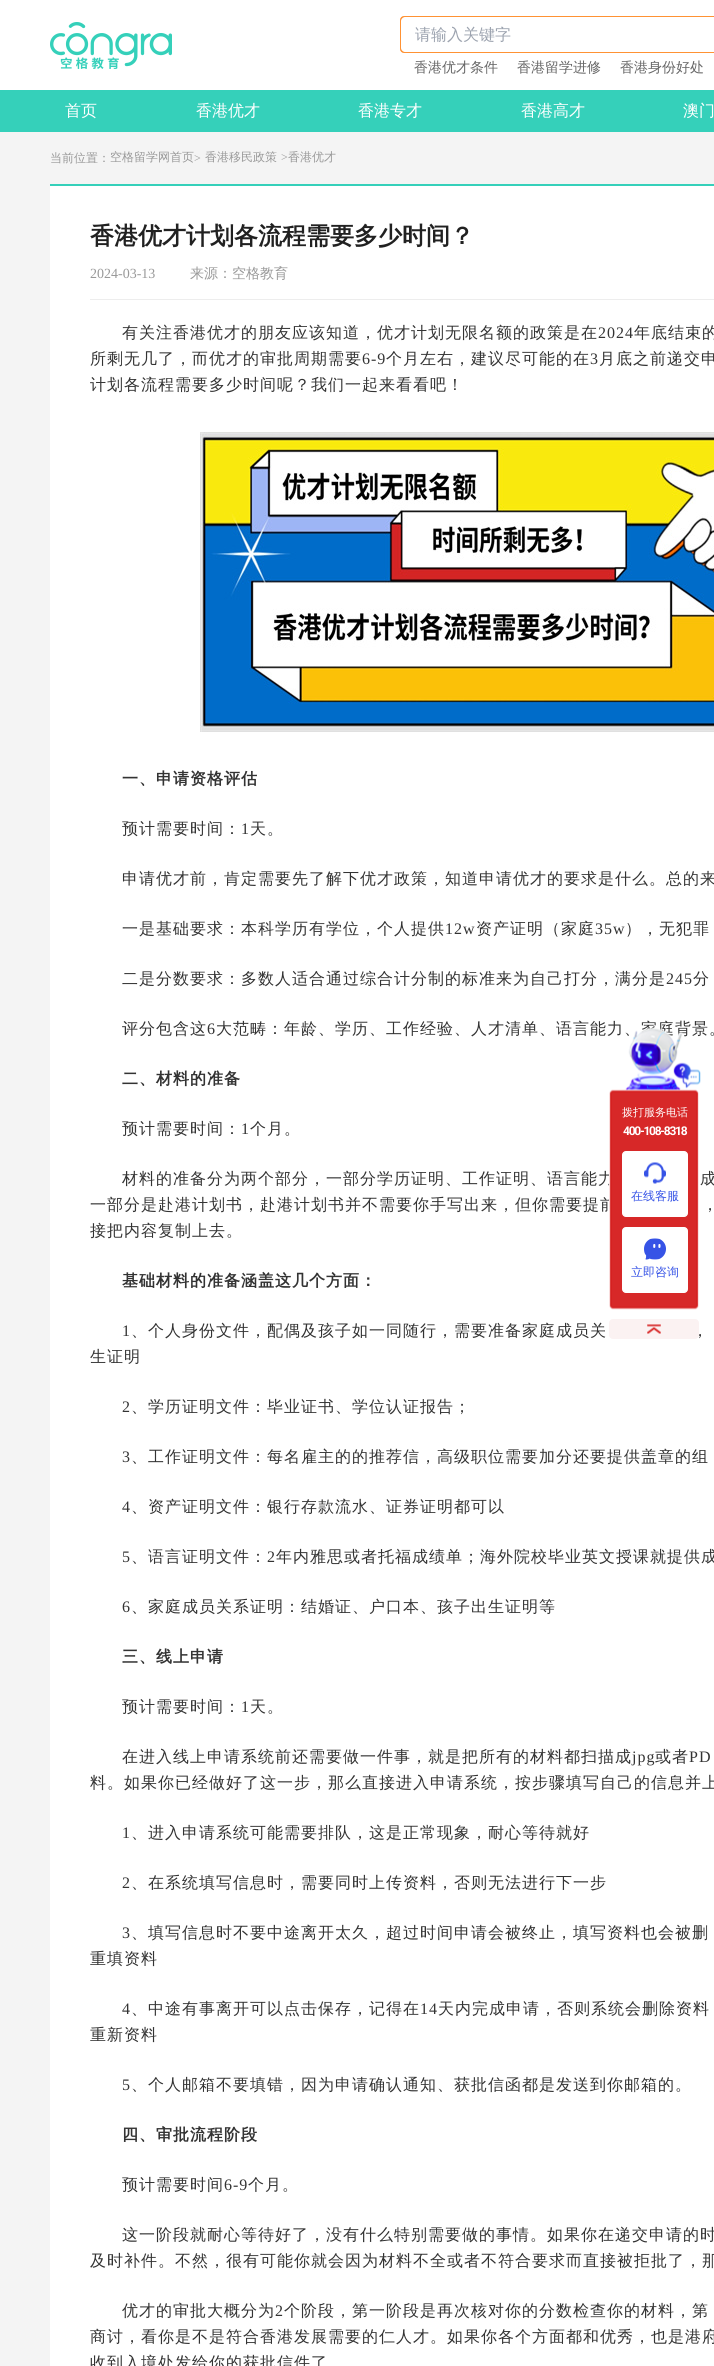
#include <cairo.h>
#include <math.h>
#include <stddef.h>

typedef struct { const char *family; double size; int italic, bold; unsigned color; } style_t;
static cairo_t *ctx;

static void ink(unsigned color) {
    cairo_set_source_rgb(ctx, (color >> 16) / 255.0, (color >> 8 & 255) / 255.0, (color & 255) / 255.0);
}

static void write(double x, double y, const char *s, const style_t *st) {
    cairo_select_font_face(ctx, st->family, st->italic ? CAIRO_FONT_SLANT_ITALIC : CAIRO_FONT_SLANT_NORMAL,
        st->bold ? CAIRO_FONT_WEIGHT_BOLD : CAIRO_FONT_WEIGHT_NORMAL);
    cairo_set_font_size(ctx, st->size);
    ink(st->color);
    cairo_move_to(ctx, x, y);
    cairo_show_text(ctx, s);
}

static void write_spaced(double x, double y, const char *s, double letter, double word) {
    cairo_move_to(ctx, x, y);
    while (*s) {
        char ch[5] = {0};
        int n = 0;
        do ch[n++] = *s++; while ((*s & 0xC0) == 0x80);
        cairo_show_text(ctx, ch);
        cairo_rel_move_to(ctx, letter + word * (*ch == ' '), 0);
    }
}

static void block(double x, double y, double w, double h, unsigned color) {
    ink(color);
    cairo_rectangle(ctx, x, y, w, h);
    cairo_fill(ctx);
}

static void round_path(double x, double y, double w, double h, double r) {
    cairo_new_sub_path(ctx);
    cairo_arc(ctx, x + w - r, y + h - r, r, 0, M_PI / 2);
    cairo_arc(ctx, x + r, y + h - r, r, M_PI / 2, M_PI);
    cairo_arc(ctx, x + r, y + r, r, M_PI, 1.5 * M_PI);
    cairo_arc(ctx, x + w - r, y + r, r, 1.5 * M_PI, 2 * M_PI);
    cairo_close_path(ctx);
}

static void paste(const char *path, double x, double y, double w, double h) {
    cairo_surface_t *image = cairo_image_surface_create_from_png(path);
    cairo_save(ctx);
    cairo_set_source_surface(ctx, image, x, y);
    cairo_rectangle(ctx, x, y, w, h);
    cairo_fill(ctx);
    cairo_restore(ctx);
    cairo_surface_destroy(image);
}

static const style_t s1 = {"WenQuanYi Zen Hei Medium", 16, 0, 0, 0x9ca3af};
static const style_t s2 = {"WenQuanYi Zen Hei Medium", 14, 0, 0, 0x666666};
static const style_t s3 = {"WenQuanYi Zen Hei Medium", 16, 0, 0, 0xffffff};
static const style_t s4 = {"WenQuanYi Zen Hei Medium", 12, 0, 0, 0x999999};
static const style_t s5 = {"Liberation Serif", 12, 0, 0, 0x999999};
static const style_t s6 = {"WenQuanYi Zen Hei", 24, 0, 1, 0x212121};
static const style_t s7 = {"Liberation Serif", 14, 0, 0, 0x999999};
static const style_t s8 = {"WenQuanYi Zen Hei Medium", 14, 0, 0, 0x999999};
static const style_t s9 = {"WenQuanYi Zen Hei Medium", 11, 0, 0, 0xffffff};
static const style_t s10 = {"WenQuanYi Zen Hei Medium", 12, 0, 0, 0x3653e6};

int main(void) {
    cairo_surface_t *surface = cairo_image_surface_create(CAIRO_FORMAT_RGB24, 714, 2366);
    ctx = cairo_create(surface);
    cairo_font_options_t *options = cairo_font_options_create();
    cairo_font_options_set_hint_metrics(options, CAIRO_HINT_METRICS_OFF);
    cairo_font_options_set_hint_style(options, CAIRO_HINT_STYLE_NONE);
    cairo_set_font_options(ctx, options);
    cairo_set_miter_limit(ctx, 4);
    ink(0xffffff);
    cairo_paint(ctx);
    paste("pic1.png", 50, 22, 122, 47);
    ink(0xff9234);
    round_path(400.5, 16.5, 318, 36, 3.5);
    cairo_fill_preserve(ctx);
    cairo_set_line_width(ctx, 1);
    cairo_stroke(ctx);
    ink(0xffffff);
    cairo_new_path(ctx);
    cairo_move_to(ctx, 405, 17);
    cairo_line_to(ctx, 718, 17);
    cairo_line_to(ctx, 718, 52);
    cairo_line_to(ctx, 405, 52);
    cairo_curve_to(ctx, 403, 52, 401, 50, 401, 48);
    cairo_line_to(ctx, 401, 21);
    cairo_curve_to(ctx, 401, 19, 403, 17, 405, 17);
    cairo_close_path(ctx);
    cairo_fill(ctx);
    write(415, 40, "请输入关键字", &s1);
    write(414, 72, "香港优才条件", &s2);
    write(517, 72, "香港留学进修", &s2);
    write(620, 72, "香港身份好处", &s2);
    block(0, 90, 714, 42, 0x35d0ba);
    write(65, 116, "首页", &s3);
    write(196, 116, "香港优才", &s3);
    write(358, 116, "香港专才", &s3);
    write(521, 116, "香港高才", &s3);
    write(683, 116, "澳门", &s3);
    block(0, 132, 714, 2234, 0xf4f4f4);
    write(50, 162, "当前位置：", &s4);
    write(110, 161, "空格留学网首页", &s4);
    write(194, 162, ">", &s5);
    write(205, 161, "香港移民政策", &s4);
    write(281, 161, ">", &s5);
    write(288, 161, "香港优才", &s4);
    block(50, 184, 664, 2, 0x35d0ba);
    block(50, 186, 664, 2180, 0xffffff);
    block(90, 299, 624, 1, 0xededed);
    write(90, 244, "香港优才计划各流程需要多少时间？", &s6);
    write(90, 278, "2024-03-13", &s7);
    write(190, 278, "来源：空格教育", &s8);
    cairo_set_font_size(ctx, 16);
    ink(0x333333);
    write_spaced(122, 338, "有关注香港优才的朋友应该知道，优才计划无限名额的政策是在", 1, 0);
    cairo_select_font_face(ctx, "Liberation Serif", CAIRO_FONT_SLANT_NORMAL, CAIRO_FONT_WEIGHT_NORMAL);
    write_spaced(598, 338, "2024", 1, 0);
    cairo_select_font_face(ctx, "WenQuanYi Zen Hei Medium", CAIRO_FONT_SLANT_NORMAL, CAIRO_FONT_WEIGHT_NORMAL);
    write_spaced(634, 338, "年底结束的", 1, 0);
    write_spaced(90, 364, "所剩无几了，而优才的审批周期需要", 1, 0);
    cairo_select_font_face(ctx, "Liberation Serif", CAIRO_FONT_SLANT_NORMAL, CAIRO_FONT_WEIGHT_NORMAL);
    write_spaced(362, 364, "6-9", 1, 0);
    cairo_select_font_face(ctx, "WenQuanYi Zen Hei Medium", CAIRO_FONT_SLANT_NORMAL, CAIRO_FONT_WEIGHT_NORMAL);
    write_spaced(386, 364, "个月左右，建议尽可能的在", 1, 0);
    cairo_select_font_face(ctx, "Liberation Serif", CAIRO_FONT_SLANT_NORMAL, CAIRO_FONT_WEIGHT_NORMAL);
    write_spaced(590, 364, "3", 1, 0);
    cairo_select_font_face(ctx, "WenQuanYi Zen Hei Medium", CAIRO_FONT_SLANT_NORMAL, CAIRO_FONT_WEIGHT_NORMAL);
    write_spaced(599, 364, "月底之前递交申", 1, 0);
    write_spaced(90, 390, "计划各流程需要多少时间呢？我们一起来看看吧！", 1, 0);
    paste("pic2.png", 200, 432, 514, 300);
    cairo_select_font_face(ctx, "WenQuanYi Zen Hei", CAIRO_FONT_SLANT_NORMAL, CAIRO_FONT_WEIGHT_BOLD);
    write_spaced(122, 784, "一、申请资格评估", 1, 0);
    cairo_select_font_face(ctx, "WenQuanYi Zen Hei Medium", CAIRO_FONT_SLANT_NORMAL, CAIRO_FONT_WEIGHT_NORMAL);
    write_spaced(122, 834, "预计需要时间：", 1, 0);
    cairo_select_font_face(ctx, "Liberation Serif", CAIRO_FONT_SLANT_NORMAL, CAIRO_FONT_WEIGHT_NORMAL);
    write_spaced(241, 834, "1", 1, 0);
    cairo_select_font_face(ctx, "WenQuanYi Zen Hei Medium", CAIRO_FONT_SLANT_NORMAL, CAIRO_FONT_WEIGHT_NORMAL);
    write_spaced(250, 834, "天。", 1, 0);
    write_spaced(122, 884, "申请优才前，肯定需要先了解下优才政策，知道申请优才的要求是什么。总的来", 1, 0);
    write_spaced(122, 934, "一是基础要求：本科学历有学位，个人提供", 1, 0);
    cairo_select_font_face(ctx, "Liberation Serif", CAIRO_FONT_SLANT_NORMAL, CAIRO_FONT_WEIGHT_NORMAL);
    write_spaced(445, 934, "12w", 1, 0);
    cairo_select_font_face(ctx, "WenQuanYi Zen Hei Medium", CAIRO_FONT_SLANT_NORMAL, CAIRO_FONT_WEIGHT_NORMAL);
    write_spaced(476, 934, "资产证明（家庭", 1, 0);
    cairo_select_font_face(ctx, "Liberation Serif", CAIRO_FONT_SLANT_NORMAL, CAIRO_FONT_WEIGHT_NORMAL);
    write_spaced(595, 934, "35w", 1, 0);
    cairo_select_font_face(ctx, "WenQuanYi Zen Hei Medium", CAIRO_FONT_SLANT_NORMAL, CAIRO_FONT_WEIGHT_NORMAL);
    write_spaced(625, 934, "），无犯罪", 1, 0);
    write_spaced(122, 984, "二是分数要求：多数人适合通过综合计分制的标准来为自己打分，满分是", 1, 0);
    cairo_select_font_face(ctx, "Liberation Serif", CAIRO_FONT_SLANT_NORMAL, CAIRO_FONT_WEIGHT_NORMAL);
    write_spaced(666, 984, "245", 1, 0);
    cairo_select_font_face(ctx, "WenQuanYi Zen Hei Medium", CAIRO_FONT_SLANT_NORMAL, CAIRO_FONT_WEIGHT_NORMAL);
    write_spaced(693, 984, "分", 1, 0);
    write_spaced(122, 1034, "评分包含这", 1, 0);
    cairo_select_font_face(ctx, "Liberation Serif", CAIRO_FONT_SLANT_NORMAL, CAIRO_FONT_WEIGHT_NORMAL);
    write_spaced(207, 1034, "6", 1, 0);
    cairo_select_font_face(ctx, "WenQuanYi Zen Hei Medium", CAIRO_FONT_SLANT_NORMAL, CAIRO_FONT_WEIGHT_NORMAL);
    write_spaced(216, 1034, "大范畴：年龄、学历、工作经验、人才清单、语言能力、家庭背景。", 1, 0);
    cairo_select_font_face(ctx, "WenQuanYi Zen Hei", CAIRO_FONT_SLANT_NORMAL, CAIRO_FONT_WEIGHT_BOLD);
    write_spaced(122, 1084, "二、材料的准备", 1, 0);
    cairo_select_font_face(ctx, "WenQuanYi Zen Hei Medium", CAIRO_FONT_SLANT_NORMAL, CAIRO_FONT_WEIGHT_NORMAL);
    write_spaced(122, 1134, "预计需要时间：", 1, 0);
    cairo_select_font_face(ctx, "Liberation Serif", CAIRO_FONT_SLANT_NORMAL, CAIRO_FONT_WEIGHT_NORMAL);
    write_spaced(241, 1134, "1", 1, 0);
    cairo_select_font_face(ctx, "WenQuanYi Zen Hei Medium", CAIRO_FONT_SLANT_NORMAL, CAIRO_FONT_WEIGHT_NORMAL);
    write_spaced(250, 1134, "个月。", 1, 0);
    write_spaced(122, 1184, "材料的准备分为两个部分，一部分学历证明、工作证明、语言能力", 1, 0);
    write_spaced(700, 1184, "成", 1, 0);
    write_spaced(90, 1210, "一部分是赴港计划书，赴港计划书并不需要你手写出来，但你需要提前", 1, 0);
    write_spaced(702, 1210, "，", 1, 0);
    write_spaced(90, 1236, "接把内容复制上去。", 1, 0);
    cairo_select_font_face(ctx, "WenQuanYi Zen Hei", CAIRO_FONT_SLANT_NORMAL, CAIRO_FONT_WEIGHT_BOLD);
    write_spaced(122, 1286, "基础材料的准备涵盖这几个方面：", 1, 0);
    cairo_select_font_face(ctx, "Liberation Serif", CAIRO_FONT_SLANT_NORMAL, CAIRO_FONT_WEIGHT_NORMAL);
    write_spaced(122, 1336, "1", 1, 0);
    cairo_select_font_face(ctx, "WenQuanYi Zen Hei Medium", CAIRO_FONT_SLANT_NORMAL, CAIRO_FONT_WEIGHT_NORMAL);
    write_spaced(131, 1336, "、个人身份文件，配偶及孩子如一同随行，需要准备家庭成员关", 1, 0);
    write_spaced(692, 1336, "，", 1, 0);
    write_spaced(90, 1362, "生证明", 1, 0);
    cairo_select_font_face(ctx, "Liberation Serif", CAIRO_FONT_SLANT_NORMAL, CAIRO_FONT_WEIGHT_NORMAL);
    write_spaced(122, 1412, "2", 1, 0);
    cairo_select_font_face(ctx, "WenQuanYi Zen Hei Medium", CAIRO_FONT_SLANT_NORMAL, CAIRO_FONT_WEIGHT_NORMAL);
    write_spaced(131, 1412, "、学历证明文件：毕业证书、学位认证报告；", 1, 0);
    cairo_select_font_face(ctx, "Liberation Serif", CAIRO_FONT_SLANT_NORMAL, CAIRO_FONT_WEIGHT_NORMAL);
    write_spaced(122, 1462, "3", 1, 0);
    cairo_select_font_face(ctx, "WenQuanYi Zen Hei Medium", CAIRO_FONT_SLANT_NORMAL, CAIRO_FONT_WEIGHT_NORMAL);
    write_spaced(131, 1462, "、工作证明文件：每名雇主的的推荐信，高级职位需要加分还要提供盖章的组", 1, 0);
    cairo_select_font_face(ctx, "Liberation Serif", CAIRO_FONT_SLANT_NORMAL, CAIRO_FONT_WEIGHT_NORMAL);
    write_spaced(122, 1512, "4", 1, 0);
    cairo_select_font_face(ctx, "WenQuanYi Zen Hei Medium", CAIRO_FONT_SLANT_NORMAL, CAIRO_FONT_WEIGHT_NORMAL);
    write_spaced(131, 1512, "、资产证明文件：银行存款流水、证券证明都可以", 1, 0);
    cairo_select_font_face(ctx, "Liberation Serif", CAIRO_FONT_SLANT_NORMAL, CAIRO_FONT_WEIGHT_NORMAL);
    write_spaced(122, 1562, "5", 1, 0);
    cairo_select_font_face(ctx, "WenQuanYi Zen Hei Medium", CAIRO_FONT_SLANT_NORMAL, CAIRO_FONT_WEIGHT_NORMAL);
    write_spaced(131, 1562, "、语言证明文件：", 1, 0);
    cairo_select_font_face(ctx, "Liberation Serif", CAIRO_FONT_SLANT_NORMAL, CAIRO_FONT_WEIGHT_NORMAL);
    write_spaced(267, 1562, "2", 1, 0);
    cairo_select_font_face(ctx, "WenQuanYi Zen Hei Medium", CAIRO_FONT_SLANT_NORMAL, CAIRO_FONT_WEIGHT_NORMAL);
    write_spaced(276, 1562, "年内雅思或者托福成绩单；海外院校毕业英文授课就提供成", 1, 0);
    cairo_select_font_face(ctx, "Liberation Serif", CAIRO_FONT_SLANT_NORMAL, CAIRO_FONT_WEIGHT_NORMAL);
    write_spaced(122, 1612, "6", 1, 0);
    cairo_select_font_face(ctx, "WenQuanYi Zen Hei Medium", CAIRO_FONT_SLANT_NORMAL, CAIRO_FONT_WEIGHT_NORMAL);
    write_spaced(131, 1612, "、家庭成员关系证明：结婚证、户口本、孩子出生证明等", 1, 0);
    cairo_select_font_face(ctx, "WenQuanYi Zen Hei", CAIRO_FONT_SLANT_NORMAL, CAIRO_FONT_WEIGHT_BOLD);
    write_spaced(122, 1662, "三、线上申请", 1, 0);
    cairo_select_font_face(ctx, "WenQuanYi Zen Hei Medium", CAIRO_FONT_SLANT_NORMAL, CAIRO_FONT_WEIGHT_NORMAL);
    write_spaced(122, 1712, "预计需要时间：", 1, 0);
    cairo_select_font_face(ctx, "Liberation Serif", CAIRO_FONT_SLANT_NORMAL, CAIRO_FONT_WEIGHT_NORMAL);
    write_spaced(241, 1712, "1", 1, 0);
    cairo_select_font_face(ctx, "WenQuanYi Zen Hei Medium", CAIRO_FONT_SLANT_NORMAL, CAIRO_FONT_WEIGHT_NORMAL);
    write_spaced(250, 1712, "天。", 1, 0);
    write_spaced(122, 1762, "在进入线上申请系统前还需要做一件事，就是把所有的材料都扫描成", 1, 0);
    cairo_select_font_face(ctx, "Liberation Serif", CAIRO_FONT_SLANT_NORMAL, CAIRO_FONT_WEIGHT_NORMAL);
    write_spaced(632, 1762, "jpg", 1, 0);
    cairo_select_font_face(ctx, "WenQuanYi Zen Hei Medium", CAIRO_FONT_SLANT_NORMAL, CAIRO_FONT_WEIGHT_NORMAL);
    write_spaced(655, 1762, "或者", 1, 0);
    cairo_select_font_face(ctx, "Liberation Serif", CAIRO_FONT_SLANT_NORMAL, CAIRO_FONT_WEIGHT_NORMAL);
    write_spaced(689, 1762, "PD", 1, 0);
    cairo_select_font_face(ctx, "WenQuanYi Zen Hei Medium", CAIRO_FONT_SLANT_NORMAL, CAIRO_FONT_WEIGHT_NORMAL);
    write_spaced(90, 1788, "料。如果你已经做好了这一步，那么直接进入申请系统，按步骤填写自己的信息并上", 1, 0);
    cairo_select_font_face(ctx, "Liberation Serif", CAIRO_FONT_SLANT_NORMAL, CAIRO_FONT_WEIGHT_NORMAL);
    write_spaced(122, 1838, "1", 1, 0);
    cairo_select_font_face(ctx, "WenQuanYi Zen Hei Medium", CAIRO_FONT_SLANT_NORMAL, CAIRO_FONT_WEIGHT_NORMAL);
    write_spaced(131, 1838, "、进入申请系统可能需要排队，这是正常现象，耐心等待就好", 1, 0);
    cairo_select_font_face(ctx, "Liberation Serif", CAIRO_FONT_SLANT_NORMAL, CAIRO_FONT_WEIGHT_NORMAL);
    write_spaced(122, 1888, "2", 1, 0);
    cairo_select_font_face(ctx, "WenQuanYi Zen Hei Medium", CAIRO_FONT_SLANT_NORMAL, CAIRO_FONT_WEIGHT_NORMAL);
    write_spaced(131, 1888, "、在系统填写信息时，需要同时上传资料，否则无法进行下一步", 1, 0);
    cairo_select_font_face(ctx, "Liberation Serif", CAIRO_FONT_SLANT_NORMAL, CAIRO_FONT_WEIGHT_NORMAL);
    write_spaced(122, 1938, "3", 1, 0);
    cairo_select_font_face(ctx, "WenQuanYi Zen Hei Medium", CAIRO_FONT_SLANT_NORMAL, CAIRO_FONT_WEIGHT_NORMAL);
    write_spaced(131, 1938, "、填写信息时不要中途离开太久，超过时间申请会被终止，填写资料也会被删", 1, 0);
    write_spaced(90, 1964, "重填资料", 1, 0);
    cairo_select_font_face(ctx, "Liberation Serif", CAIRO_FONT_SLANT_NORMAL, CAIRO_FONT_WEIGHT_NORMAL);
    write_spaced(122, 2014, "4", 1, 0);
    cairo_select_font_face(ctx, "WenQuanYi Zen Hei Medium", CAIRO_FONT_SLANT_NORMAL, CAIRO_FONT_WEIGHT_NORMAL);
    write_spaced(131, 2014, "、中途有事离开可以点击保存，记得在", 1, 0);
    cairo_select_font_face(ctx, "Liberation Serif", CAIRO_FONT_SLANT_NORMAL, CAIRO_FONT_WEIGHT_NORMAL);
    write_spaced(420, 2014, "14", 1, 0);
    cairo_select_font_face(ctx, "WenQuanYi Zen Hei Medium", CAIRO_FONT_SLANT_NORMAL, CAIRO_FONT_WEIGHT_NORMAL);
    write_spaced(438, 2014, "天内完成申请，否则系统会删除资料", 1, 0);
    write_spaced(90, 2040, "重新资料", 1, 0);
    cairo_select_font_face(ctx, "Liberation Serif", CAIRO_FONT_SLANT_NORMAL, CAIRO_FONT_WEIGHT_NORMAL);
    write_spaced(122, 2090, "5", 1, 0);
    cairo_select_font_face(ctx, "WenQuanYi Zen Hei Medium", CAIRO_FONT_SLANT_NORMAL, CAIRO_FONT_WEIGHT_NORMAL);
    write_spaced(131, 2090, "、个人邮箱不要填错，因为申请确认通知、获批信函都是发送到你邮箱的。", 1, 0);
    cairo_select_font_face(ctx, "WenQuanYi Zen Hei", CAIRO_FONT_SLANT_NORMAL, CAIRO_FONT_WEIGHT_BOLD);
    write_spaced(122, 2140, "四、审批流程阶段", 1, 0);
    cairo_select_font_face(ctx, "WenQuanYi Zen Hei Medium", CAIRO_FONT_SLANT_NORMAL, CAIRO_FONT_WEIGHT_NORMAL);
    write_spaced(122, 2190, "预计需要时间", 1, 0);
    cairo_select_font_face(ctx, "Liberation Serif", CAIRO_FONT_SLANT_NORMAL, CAIRO_FONT_WEIGHT_NORMAL);
    write_spaced(224, 2190, "6-9", 1, 0);
    cairo_select_font_face(ctx, "WenQuanYi Zen Hei Medium", CAIRO_FONT_SLANT_NORMAL, CAIRO_FONT_WEIGHT_NORMAL);
    write_spaced(248, 2190, "个月。", 1, 0);
    write_spaced(122, 2240, "这一阶段就耐心等待好了，没有什么特别需要做的事情。如果你在递交申请的时", 1, 0);
    write_spaced(90, 2266, "及时补件。不然，很有可能你就会因为材料不全或者不符合要求而直接被拒批了，那", 1, 0);
    write_spaced(122, 2316, "优才的审批大概分为", 1, 0);
    cairo_select_font_face(ctx, "Liberation Serif", CAIRO_FONT_SLANT_NORMAL, CAIRO_FONT_WEIGHT_NORMAL);
    write_spaced(275, 2316, "2", 1, 0);
    cairo_select_font_face(ctx, "WenQuanYi Zen Hei Medium", CAIRO_FONT_SLANT_NORMAL, CAIRO_FONT_WEIGHT_NORMAL);
    write_spaced(284, 2316, "个阶段，第一阶段是再次核对你的分数检查你的材料，第", 1, 0);
    write_spaced(90, 2342, "商讨，看你是不是符合香港发展需要的仁人才。如果你各个方面都和优秀，也是港府", 1, 0);
    write_spaced(90, 2368, "收到入境处发给你的获批信件了", 1, 0);
    paste("pic3.png", 609, 1027, 92, 283);
    write(622, 1116, "拨打服务电话", &s9);
    cairo_select_font_face(ctx, "Roboto", CAIRO_FONT_SLANT_NORMAL, CAIRO_FONT_WEIGHT_BOLD);
    cairo_set_font_size(ctx, 12);
    write_spaced(623, 1135, "400-108-8318", -1.25, 0);
    round_path(622.5, 1151.5, 65, 65, 3.5);
    cairo_fill_preserve(ctx);
    cairo_stroke(ctx);
    paste("pic4.png", 644, 1162, 22, 22);
    write(631, 1200, "在线客服", &s10);
    ink(0xffffff);
    round_path(622.5, 1227.5, 65, 65, 3.5);
    cairo_fill_preserve(ctx);
    cairo_stroke(ctx);
    paste("pic5.png", 644, 1238, 22, 22);
    write(631, 1276, "立即咨询", &s10);
    ink(0xfbf2f2);
    round_path(609, 1319, 90, 20, 4);
    cairo_fill(ctx);
    paste("pic6.png", 647, 1324, 14, 10);
    cairo_surface_write_to_png(surface, "screenshot.png");
    cairo_font_options_destroy(options);
    cairo_destroy(ctx);
    cairo_surface_destroy(surface);
    return 0;
}
